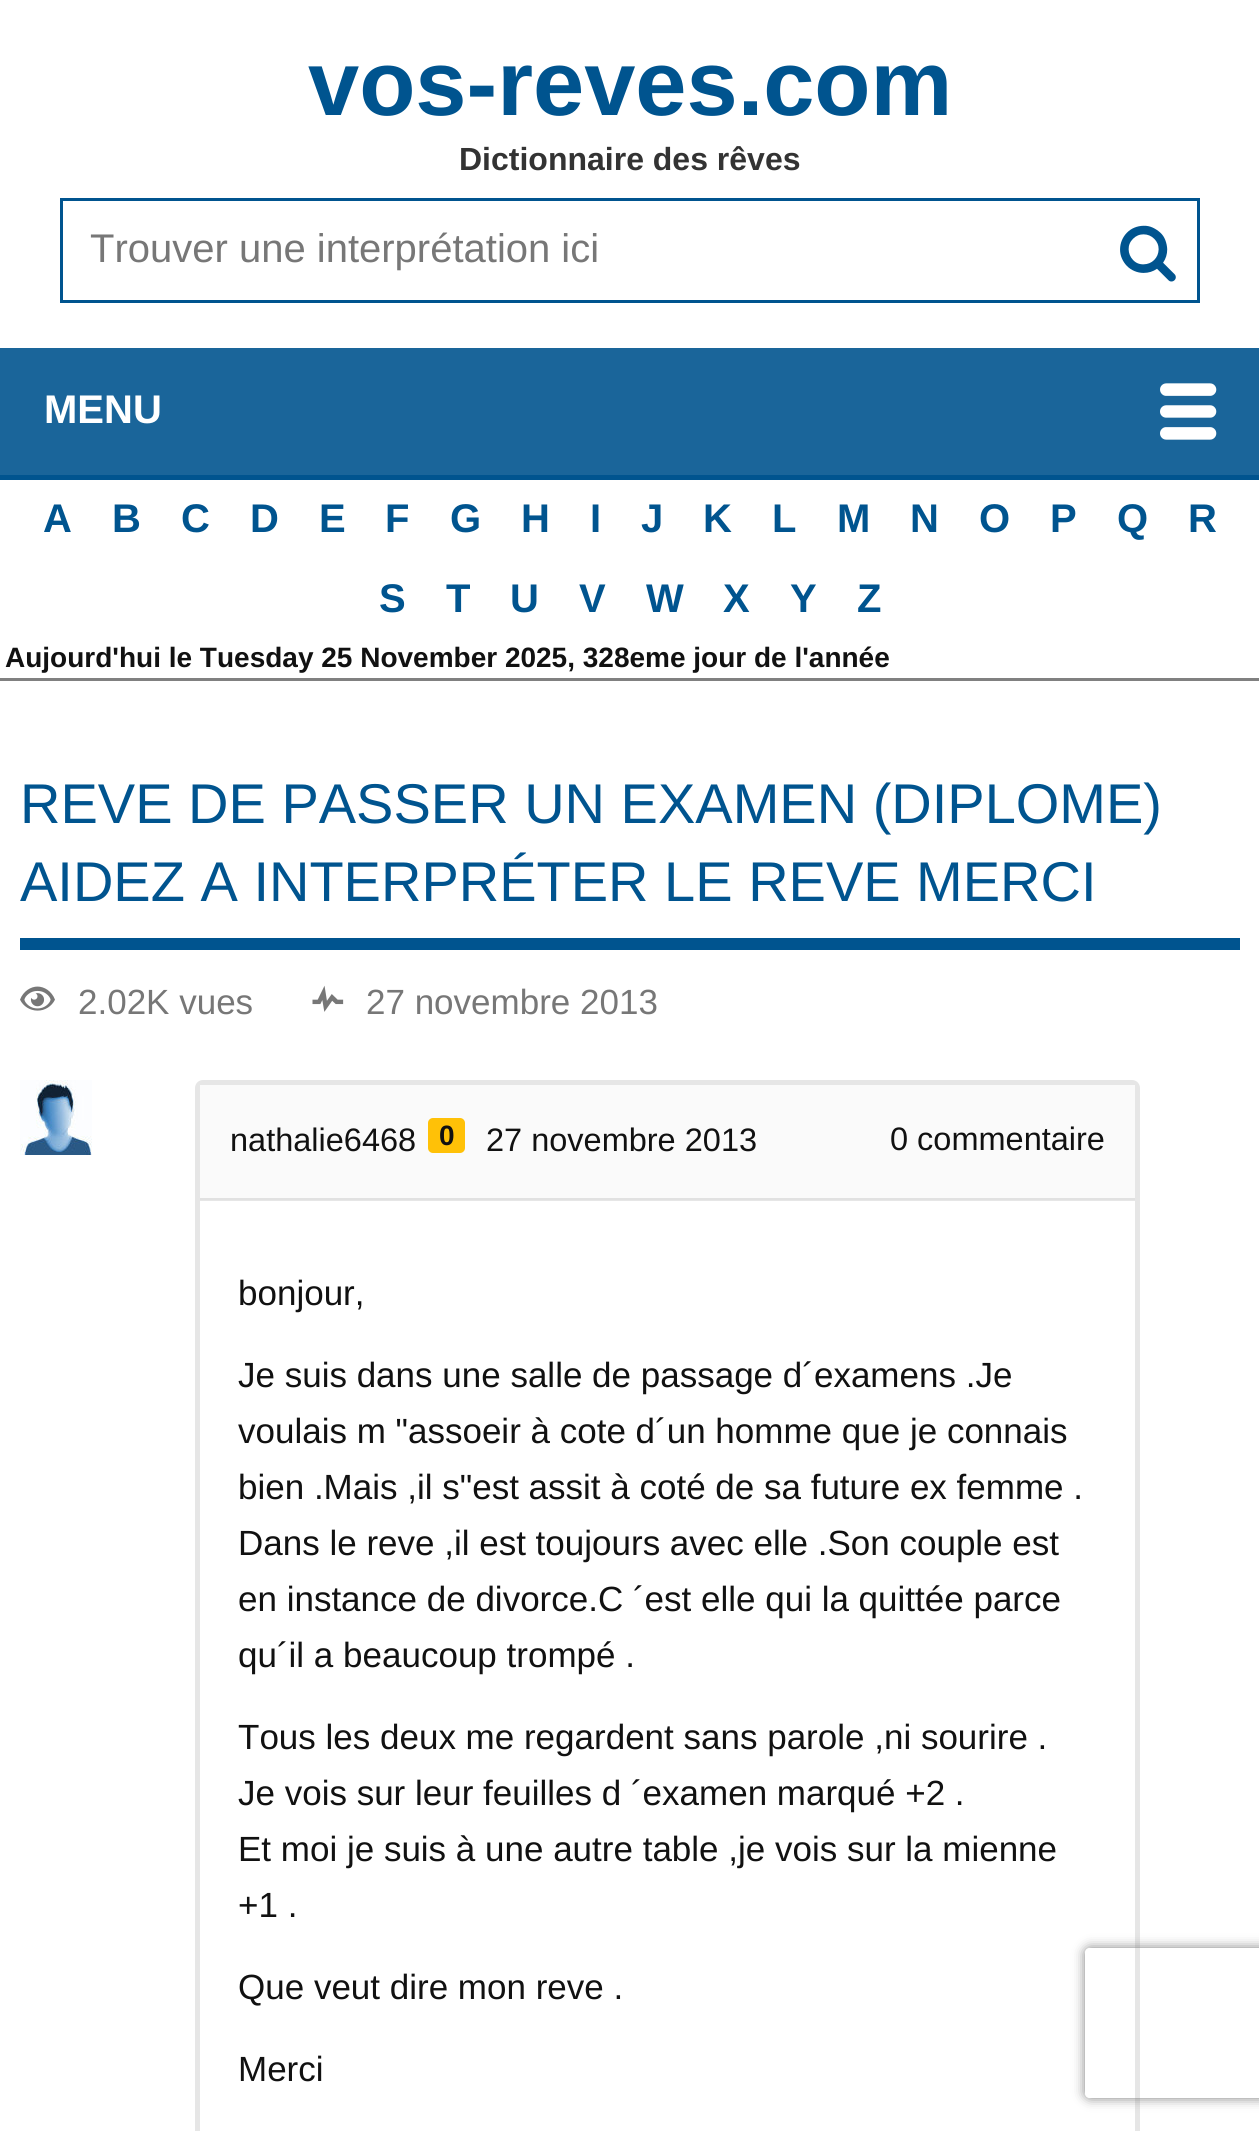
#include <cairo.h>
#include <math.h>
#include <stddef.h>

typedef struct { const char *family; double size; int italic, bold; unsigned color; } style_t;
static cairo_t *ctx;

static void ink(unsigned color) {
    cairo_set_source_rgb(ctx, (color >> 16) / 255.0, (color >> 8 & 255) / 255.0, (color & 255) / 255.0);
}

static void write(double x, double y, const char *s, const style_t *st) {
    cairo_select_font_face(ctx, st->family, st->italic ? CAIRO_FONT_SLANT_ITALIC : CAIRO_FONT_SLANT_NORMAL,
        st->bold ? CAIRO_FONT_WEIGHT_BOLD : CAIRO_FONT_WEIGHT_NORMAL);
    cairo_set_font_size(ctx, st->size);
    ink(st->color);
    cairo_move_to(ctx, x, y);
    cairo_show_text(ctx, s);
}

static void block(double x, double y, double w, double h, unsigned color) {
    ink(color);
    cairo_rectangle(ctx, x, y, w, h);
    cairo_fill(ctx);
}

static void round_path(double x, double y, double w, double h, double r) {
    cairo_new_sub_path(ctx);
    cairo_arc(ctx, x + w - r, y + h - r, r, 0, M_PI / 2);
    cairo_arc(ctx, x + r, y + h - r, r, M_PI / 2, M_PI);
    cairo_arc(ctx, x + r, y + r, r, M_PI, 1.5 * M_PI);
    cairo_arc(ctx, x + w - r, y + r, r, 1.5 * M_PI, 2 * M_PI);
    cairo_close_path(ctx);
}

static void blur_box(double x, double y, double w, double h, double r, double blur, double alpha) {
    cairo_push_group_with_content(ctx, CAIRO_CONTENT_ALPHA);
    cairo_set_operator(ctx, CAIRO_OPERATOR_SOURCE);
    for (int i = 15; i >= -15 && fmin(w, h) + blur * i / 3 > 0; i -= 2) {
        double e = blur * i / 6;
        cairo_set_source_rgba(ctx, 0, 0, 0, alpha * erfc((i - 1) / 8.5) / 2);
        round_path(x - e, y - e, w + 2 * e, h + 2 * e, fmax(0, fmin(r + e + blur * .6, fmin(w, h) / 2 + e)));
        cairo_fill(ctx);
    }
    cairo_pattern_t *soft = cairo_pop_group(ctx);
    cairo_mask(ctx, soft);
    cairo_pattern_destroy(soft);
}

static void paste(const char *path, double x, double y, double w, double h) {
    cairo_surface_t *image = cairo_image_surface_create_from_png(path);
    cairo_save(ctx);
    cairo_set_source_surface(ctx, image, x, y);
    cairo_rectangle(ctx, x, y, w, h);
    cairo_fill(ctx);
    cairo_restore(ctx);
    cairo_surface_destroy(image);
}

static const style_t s1 = {"Liberation Sans", 92, 0, 1, 0x00548f};
static const style_t s2 = {"Liberation Sans", 32, 0, 1, 0x333333};
static const style_t s3 = {"Liberation Sans", 40, 0, 0, 0x777777};
static const style_t s4 = {"Liberation Sans", 40, 0, 1, 0xffffff};
static const style_t s5 = {"Liberation Sans", 40, 0, 1, 0x00548f};
static const style_t s6 = {"Liberation Sans", 28, 0, 1, 0x111111};
static const style_t s7 = {"Liberation Sans", 56, 0, 0, 0x00548f};
static const style_t s8 = {"Liberation Sans", 35, 0, 0, 0x777777};
static const style_t s9 = {"Liberation Sans", 32.5, 0, 0, 0x111111};
static const style_t s10 = {"Liberation Sans", 35, 0, 0, 0x111111};

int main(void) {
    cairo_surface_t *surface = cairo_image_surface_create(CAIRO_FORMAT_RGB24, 1259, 2131);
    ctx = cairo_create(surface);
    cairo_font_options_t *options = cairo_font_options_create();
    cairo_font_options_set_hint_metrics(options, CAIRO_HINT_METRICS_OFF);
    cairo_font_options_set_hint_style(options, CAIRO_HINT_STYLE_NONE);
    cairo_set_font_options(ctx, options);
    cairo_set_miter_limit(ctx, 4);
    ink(0xffffff);
    cairo_paint(ctx);
    block(200, 1200, 935, 1, 0xe6e6e6);
    write(308, 115, "vos-reves.com", &s1);
    write(459, 170, "Dictionnaire des rêves", &s2);
    cairo_rectangle(ctx, 61.5, 199.5, 1137, 102);
    ink(0x00548f);
    cairo_set_line_width(ctx, 3);
    cairo_stroke(ctx);
    write(90, 262, "Trouver une interprétation ici", &s3);
    paste("pic1.png", 1120, 225, 56, 57);
    block(0, 348, 1259, 127, 0x1a659a);
    write(44, 423, "MENU", &s4);
    paste("pic2.png", 1160, 383, 57, 57);
    block(0, 475, 1259, 5, 0x00548f);
    write(43, 532, "A", &s5);
    write(112, 532, "B", &s5);
    write(181, 532, "C", &s5);
    write(250, 532, "D", &s5);
    write(319, 532, "E", &s5);
    write(385, 532, "F", &s5);
    write(450, 532, "G", &s5);
    write(521, 532, "H", &s5);
    write(590, 532, "I", &s5);
    write(641, 532, "J", &s5);
    write(703, 532, "K", &s5);
    write(772, 532, "L", &s5);
    write(837, 532, "M", &s5);
    write(910, 532, "N", &s5);
    write(979, 532, "O", &s5);
    write(1050, 532, "P", &s5);
    write(1117, 532, "Q", &s5);
    write(1188, 532, "R", &s5);
    write(379, 612, "S", &s5);
    write(446, 612, "T", &s5);
    write(510, 612, "U", &s5);
    write(579, 612, "V", &s5);
    write(646, 612, "W", &s5);
    write(723, 612, "X", &s5);
    write(790, 612, "Y", &s5);
    write(857, 612, "Z", &s5);
    write(5, 667, "Aujourd'hui le Tuesday 25 November 2025, 328eme jour de l'année", &s6);
    block(0, 678, 1259, 3, 0x808080);
    block(20, 938, 1220, 12, 0x00548f);
    write(20, 823, "REVE DE PASSER UN EXAMEN (DIPLOME)", &s7);
    write(20, 901, "AIDEZ A INTERPRÉTER LE REVE", &s7);
    write(916, 901, "MERCI", &s7);
    paste("pic3.png", 20, 986, 35, 25);
    write(78, 1014, "2.02K vues", &s8);
    paste("pic4.png", 312, 985, 32, 27);
    write(366, 1014, "27 novembre 2013", &s8);
    paste("pic5.png", 20, 1080, 72, 75);
    round_path(197.5, 1082.5, 940, 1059, 5.5);
    ink(0xe6e6e6);
    cairo_set_line_width(ctx, 5);
    cairo_stroke(ctx);
    block(200, 1085, 935, 113, 0xfafafa);
    block(200, 1198, 935, 2, 0xe1e1e1);
    write(230, 1151, "nathalie6468", &s9);
    ink(0xffc107);
    round_path(428, 1118, 37, 35, 5);
    cairo_fill(ctx);
    write(439, 1145, "0", &s6);
    write(486, 1151, "27 novembre 2013", &s9);
    write(890, 1150, "0 commentaire", &s9);
    write(238, 1305, "bonjour,", &s10);
    write(238, 1387, "Je suis dans une salle de passage d´examens .Je", &s10);
    write(238, 1443, "voulais m \"assoeir à cote d´un homme que je connais", &s10);
    write(238, 1499, "bien .Mais ,il s\"est assit à coté de sa future ex femme .", &s10);
    write(238, 1555, "Dans le reve ,il est toujours avec elle .Son couple est", &s10);
    write(238, 1611, "en instance de divorce.C ´est elle qui la quittée parce", &s10);
    write(238, 1667, "qu´il a beaucoup trompé .", &s10);
    write(238, 1749, "Tous les deux me regardent sans parole ,ni sourire .", &s10);
    write(238, 1805, "Je vois sur leur feuilles d ´examen marqué +2 .", &s10);
    write(238, 1861, "Et moi je suis à une autre table ,je vois sur la mienne", &s10);
    write(238, 1917, "+1 .", &s10);
    write(238, 1999, "Que veut dire mon reve .", &s10);
    write(238, 2081, "Merci", &s10);
    cairo_save(ctx);
    cairo_set_fill_rule(ctx, CAIRO_FILL_RULE_EVEN_ODD);
    cairo_new_path(ctx);
    cairo_move_to(ctx, 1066, 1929);
    cairo_line_to(ctx, 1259, 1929);
    cairo_line_to(ctx, 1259, 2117);
    cairo_line_to(ctx, 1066, 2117);
    cairo_close_path(ctx);
    cairo_move_to(ctx, 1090, 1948);
    cairo_line_to(ctx, 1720, 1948);
    cairo_curve_to(ctx, 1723, 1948, 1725, 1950, 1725, 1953);
    cairo_line_to(ctx, 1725, 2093);
    cairo_curve_to(ctx, 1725, 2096, 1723, 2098, 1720, 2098);
    cairo_line_to(ctx, 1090, 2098);
    cairo_curve_to(ctx, 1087, 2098, 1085, 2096, 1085, 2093);
    cairo_line_to(ctx, 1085, 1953);
    cairo_curve_to(ctx, 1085, 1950, 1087, 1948, 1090, 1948);
    cairo_close_path(ctx);
    cairo_clip(ctx);
    ink(0x808080);
    blur_box(1085, 1948, 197, 150, 5, 6, 1);
    cairo_restore(ctx);
    cairo_surface_write_to_png(surface, "screenshot.png");
    cairo_font_options_destroy(options);
    cairo_destroy(ctx);
    cairo_surface_destroy(surface);
    return 0;
}
